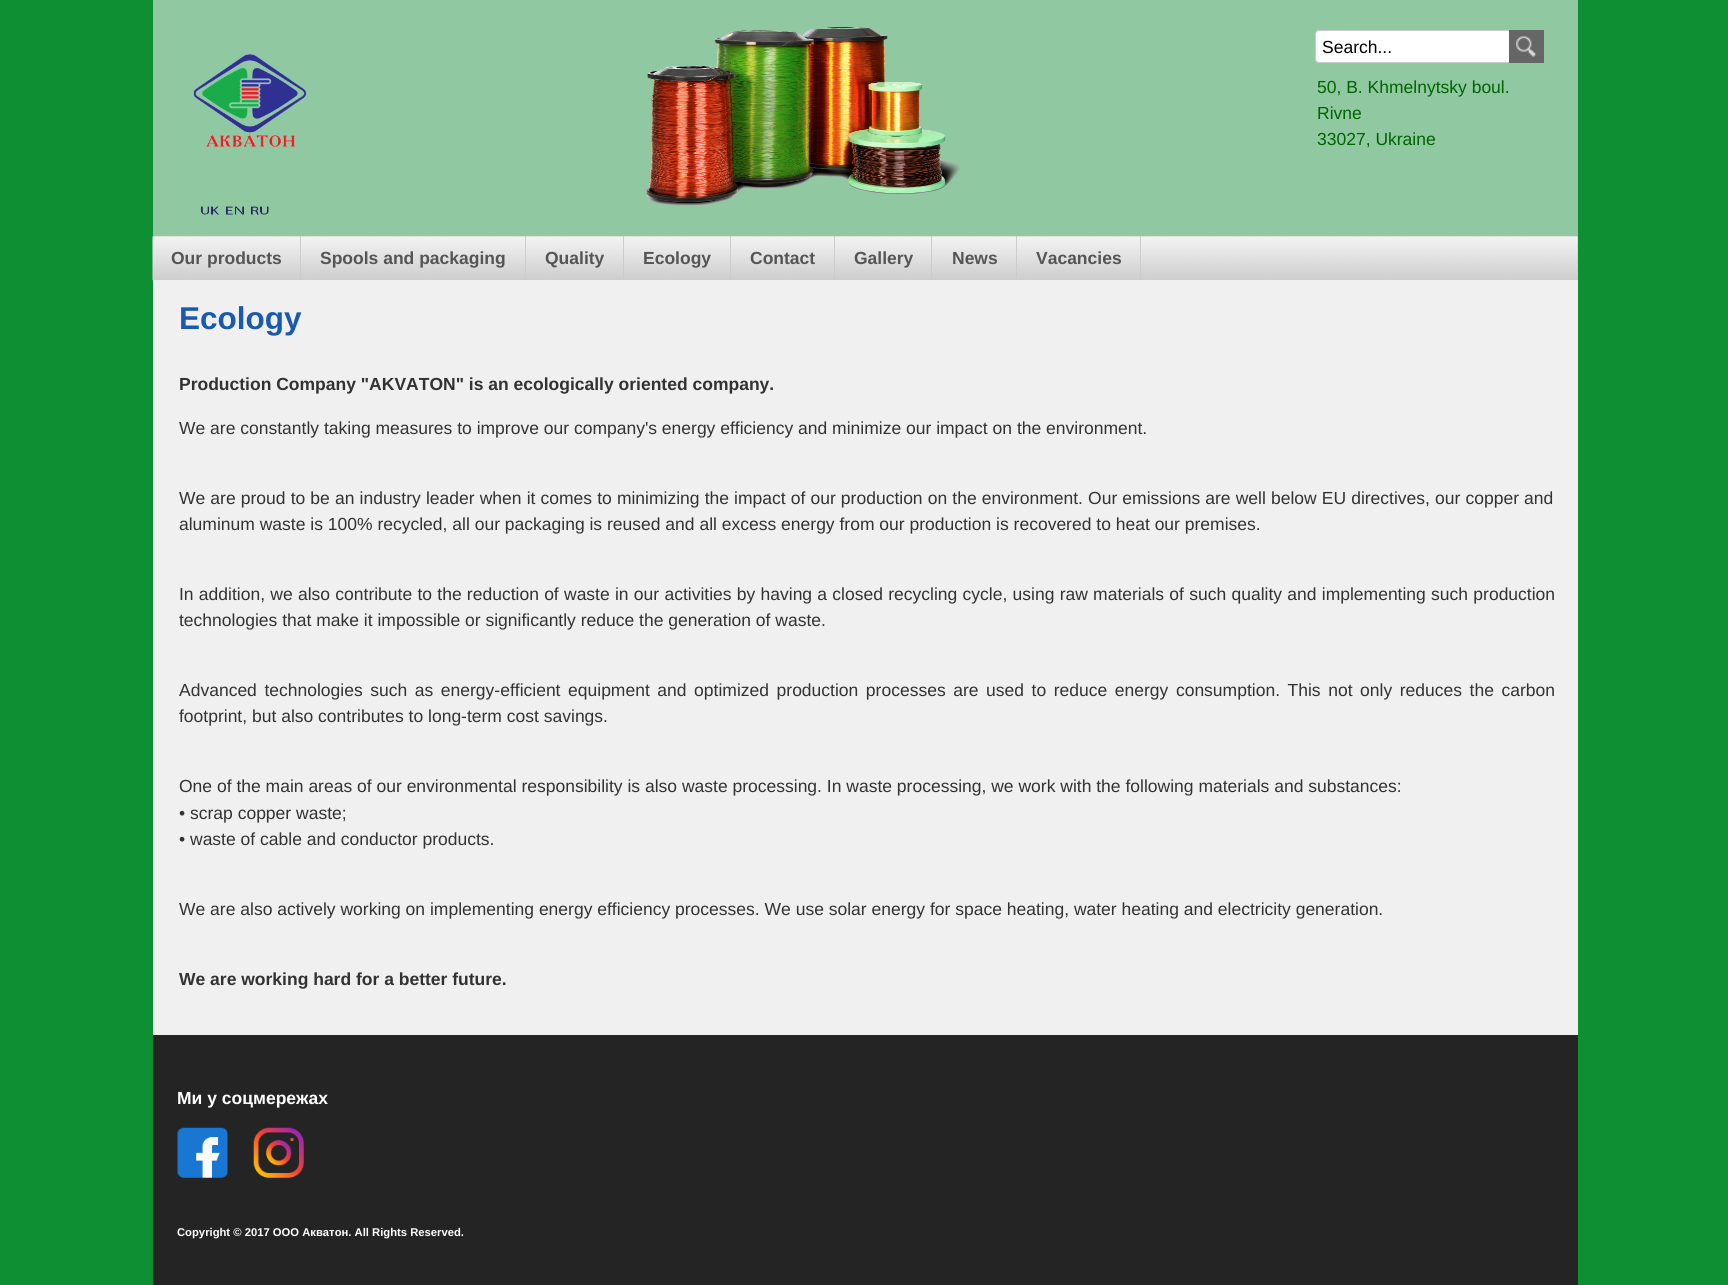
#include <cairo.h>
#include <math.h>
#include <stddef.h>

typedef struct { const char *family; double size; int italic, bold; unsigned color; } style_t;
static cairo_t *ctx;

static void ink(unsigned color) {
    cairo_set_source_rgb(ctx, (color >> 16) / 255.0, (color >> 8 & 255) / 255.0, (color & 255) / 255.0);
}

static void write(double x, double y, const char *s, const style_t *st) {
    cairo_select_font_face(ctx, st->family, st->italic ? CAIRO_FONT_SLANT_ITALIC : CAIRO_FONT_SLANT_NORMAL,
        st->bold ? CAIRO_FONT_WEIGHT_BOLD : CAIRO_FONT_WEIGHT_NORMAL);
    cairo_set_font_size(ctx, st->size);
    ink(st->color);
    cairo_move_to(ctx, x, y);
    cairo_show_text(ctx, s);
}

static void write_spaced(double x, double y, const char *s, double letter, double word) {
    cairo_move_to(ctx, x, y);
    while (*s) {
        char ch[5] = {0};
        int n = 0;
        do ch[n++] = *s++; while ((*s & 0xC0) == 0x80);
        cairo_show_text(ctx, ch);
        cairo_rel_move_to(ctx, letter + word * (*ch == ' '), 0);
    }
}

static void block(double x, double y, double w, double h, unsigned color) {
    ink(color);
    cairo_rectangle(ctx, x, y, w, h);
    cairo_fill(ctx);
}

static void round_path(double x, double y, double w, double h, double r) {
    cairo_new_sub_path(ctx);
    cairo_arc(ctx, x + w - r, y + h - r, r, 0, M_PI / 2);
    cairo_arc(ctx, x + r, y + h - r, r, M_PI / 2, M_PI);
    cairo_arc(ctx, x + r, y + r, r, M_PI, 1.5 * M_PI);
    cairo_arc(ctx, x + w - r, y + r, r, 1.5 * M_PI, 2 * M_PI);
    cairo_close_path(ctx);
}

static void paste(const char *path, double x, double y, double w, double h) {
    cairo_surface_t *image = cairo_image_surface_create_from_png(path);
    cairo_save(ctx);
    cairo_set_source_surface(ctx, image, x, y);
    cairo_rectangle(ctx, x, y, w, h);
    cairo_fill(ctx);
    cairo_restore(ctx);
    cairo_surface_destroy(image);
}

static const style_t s1 = {"Liberation Sans", 17.5, 0, 0, 0x000000};
static const style_t s2 = {"Liberation Sans", 17.5, 0, 0, 0x006400};
static const style_t s3 = {"Liberation Sans", 17.5, 0, 1, 0x555555};
static const style_t s4 = {"Liberation Sans", 31.5, 0, 1, 0x1a59b1};
static const style_t s5 = {"Liberation Sans", 17.5, 0, 1, 0x323232};
static const style_t s6 = {"Liberation Sans", 17.5, 0, 0, 0x323232};
static const style_t s7 = {"Liberation Sans", 17.5, 0, 1, 0xffffff};
static const style_t s8 = {"Liberation Sans", 11.25, 0, 1, 0xffffff};

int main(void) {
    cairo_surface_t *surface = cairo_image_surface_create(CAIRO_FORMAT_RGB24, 1728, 1285);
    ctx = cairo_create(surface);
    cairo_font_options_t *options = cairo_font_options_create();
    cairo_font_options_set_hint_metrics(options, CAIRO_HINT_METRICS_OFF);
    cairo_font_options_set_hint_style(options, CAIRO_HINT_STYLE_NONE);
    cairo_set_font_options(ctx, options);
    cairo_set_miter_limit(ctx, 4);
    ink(0x0e8f33);
    cairo_paint(ctx);
    block(153, 0, 1425, 236, 0x90c8a1);
    paste("pic1.png", 193, 54, 114, 93);
    paste("pic2.png", 646, 27, 315, 180);
    ink(0xffffff);
    round_path(1315.5, 30.5, 199, 32, 3.5);
    cairo_fill_preserve(ctx);
    ink(0xcccccc);
    cairo_set_line_width(ctx, 1);
    cairo_stroke(ctx);
    write(1322, 53, "Search...", &s1);
    block(1509, 30, 35, 33, 0x666666);
    paste("pic3.png", 1516, 36, 21, 21);
    write(1317, 93, "50, B. Khmelnytsky boul.", &s2);
    write(1317, 119, "Rivne", &s2);
    write(1317, 145, "33027, Ukraine", &s2);
    paste("pic4.png", 201, 206, 18, 9);
    paste("pic5.png", 226, 206, 18, 9);
    paste("pic6.png", 251, 206, 18, 9);
    block(153, 236, 1425, 44, 0xcccccc);
    paste("pic7.png", 152, 236, 1426, 45);
    block(300, 236, 1, 44, 0xcccccc);
    write(171, 264, "Our products", &s3);
    block(525, 236, 1, 44, 0xcccccc);
    write(320, 264, "Spools and packaging", &s3);
    block(623, 236, 1, 44, 0xcccccc);
    write(545, 264, "Quality", &s3);
    block(730, 236, 1, 44, 0xcccccc);
    write(643, 264, "Ecology", &s3);
    block(834, 236, 1, 44, 0xcccccc);
    write(750, 264, "Contact", &s3);
    block(931, 236, 1, 44, 0xcccccc);
    write(854, 264, "Gallery", &s3);
    block(1016, 236, 1, 44, 0xcccccc);
    write(952, 264, "News", &s3);
    block(1140, 236, 1, 44, 0xcccccc);
    write(1036, 264, "Vacancies", &s3);
    block(153, 280, 1425, 755, 0xf0f0f0);
    write(179, 329, "Ecology", &s4);
    write(179, 390, "Production Company \"AKVATON\" is an ecologically oriented company.", &s5);
    write(179, 434, "We are constantly taking measures to improve our company's energy efficiency and minimize our impact on the environment.", &s6);
    write_spaced(179, 504, "We are proud to be an industry leader when it comes to minimizing the impact of our production on the environment. Our emissions are well below EU directives, our copper and", 0, 0.25);
    write(179, 530, "aluminum waste is 100% recycled, all our packaging is reused and all excess energy from our production is recovered to heat our premises.", &s6);
    write_spaced(179, 600, "In addition, we also contribute to the reduction of waste in our activities by having a closed recycling cycle, using raw materials of such quality and implementing such production", 0, 0.4);
    write(179, 626, "technologies that make it impossible or significantly reduce the generation of waste.", &s6);
    write_spaced(179, 696, "Advanced technologies such as energy-efficient equipment and optimized production processes are used to reduce energy consumption. This not only reduces the carbon", 0, 2.7);
    write(179, 722, "footprint, but also contributes to long-term cost savings.", &s6);
    write(179, 792, "One of the main areas of our environmental responsibility is also waste processing. In waste processing, we work with the following materials and substances:", &s6);
    write(179, 819, "• scrap copper waste;", &s6);
    write(179, 845, "• waste of cable and conductor products.", &s6);
    write(179, 915, "We are also actively working on implementing energy efficiency processes. We use solar energy for space heating, water heating and electricity generation.", &s6);
    write(179, 985, "We are working hard for a better future.", &s5);
    block(153, 1035, 1425, 250, 0x242424);
    write(177, 1104, "Ми у соцмережах", &s7);
    paste("pic8.png", 177, 1127, 51, 51);
    paste("pic9.png", 253, 1127, 51, 51);
    write(177, 1236, "Copyright © 2017 ООО Акватон. All Rights Reserved.", &s8);
    cairo_surface_write_to_png(surface, "screenshot.png");
    cairo_font_options_destroy(options);
    cairo_destroy(ctx);
    cairo_surface_destroy(surface);
    return 0;
}
